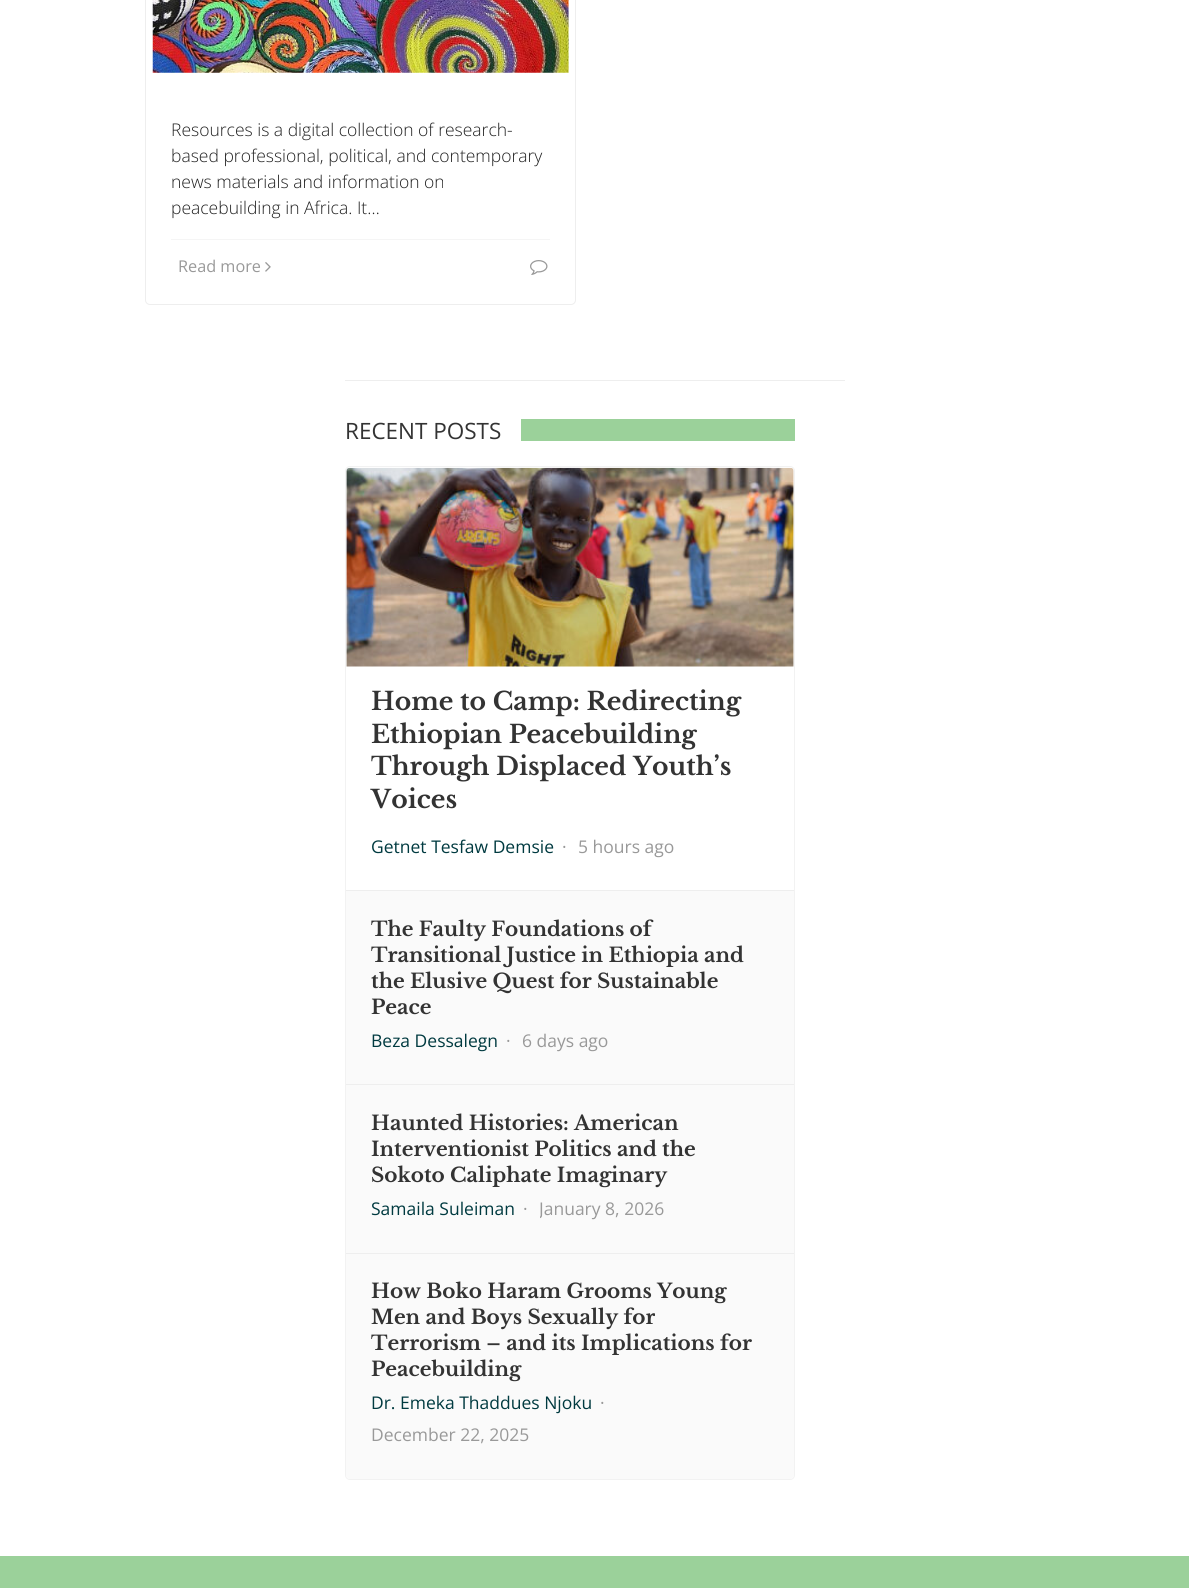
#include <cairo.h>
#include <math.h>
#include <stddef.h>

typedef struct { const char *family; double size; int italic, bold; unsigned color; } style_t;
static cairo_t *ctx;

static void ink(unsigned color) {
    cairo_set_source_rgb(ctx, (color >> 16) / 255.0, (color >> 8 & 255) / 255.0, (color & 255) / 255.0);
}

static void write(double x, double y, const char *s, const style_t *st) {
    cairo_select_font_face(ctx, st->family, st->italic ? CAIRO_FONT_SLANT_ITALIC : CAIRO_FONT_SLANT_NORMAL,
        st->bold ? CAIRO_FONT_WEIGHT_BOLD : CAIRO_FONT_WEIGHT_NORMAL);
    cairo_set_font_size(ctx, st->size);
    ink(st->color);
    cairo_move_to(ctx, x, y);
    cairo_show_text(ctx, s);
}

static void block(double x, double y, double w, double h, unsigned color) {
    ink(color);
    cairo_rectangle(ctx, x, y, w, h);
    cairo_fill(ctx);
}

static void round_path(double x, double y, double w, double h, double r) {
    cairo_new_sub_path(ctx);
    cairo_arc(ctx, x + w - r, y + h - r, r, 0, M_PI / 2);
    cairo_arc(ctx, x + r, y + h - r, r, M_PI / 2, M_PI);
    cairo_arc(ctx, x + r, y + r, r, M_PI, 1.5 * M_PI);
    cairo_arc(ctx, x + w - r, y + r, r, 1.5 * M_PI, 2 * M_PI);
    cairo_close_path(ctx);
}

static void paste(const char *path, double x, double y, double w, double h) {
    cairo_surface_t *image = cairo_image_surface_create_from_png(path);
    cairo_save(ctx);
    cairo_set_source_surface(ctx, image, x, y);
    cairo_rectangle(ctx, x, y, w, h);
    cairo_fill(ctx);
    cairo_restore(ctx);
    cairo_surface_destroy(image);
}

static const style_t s1 = {"Open Sans Light", 17.5, 0, 0, 0x212121};
static const style_t s2 = {"Open Sans", 16.25, 0, 0, 0x999999};
static const style_t s3 = {"Open Sans", 22.5, 0, 0, 0x333333};
static const style_t s4 = {"Libre Baskerville", 25, 0, 1, 0x333333};
static const style_t s5 = {"Open Sans", 17.5, 0, 0, 0x003a40};
static const style_t s6 = {"Open Sans", 17.5, 0, 0, 0x999999};
static const style_t s7 = {"Libre Baskerville", 20, 0, 1, 0x333333};

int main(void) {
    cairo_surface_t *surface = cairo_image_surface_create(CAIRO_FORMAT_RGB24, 1189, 1588);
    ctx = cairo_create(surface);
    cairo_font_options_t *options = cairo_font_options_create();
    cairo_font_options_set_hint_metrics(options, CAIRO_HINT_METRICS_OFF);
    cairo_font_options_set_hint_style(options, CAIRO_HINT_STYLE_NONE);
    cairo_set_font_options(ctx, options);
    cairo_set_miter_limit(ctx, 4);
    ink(0xffffff);
    cairo_paint(ctx);
    round_path(145.5, -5.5, 430, 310, 4.5);
    ink(0xeeeeee);
    cairo_set_line_width(ctx, 1);
    cairo_stroke(ctx);
    paste("pic1.png", 152, 0, 417, 73);
    write(171, 136, "Resources is a digital collection of research-", &s1);
    write(171, 162, "based professional, political, and contemporary", &s1);
    write(171, 188, "news materials and information on", &s1);
    write(171, 214, "peacebuilding in Africa. It…", &s1);
    block(171, 239, 379, 1, 0xf5f5f5);
    write(178, 272, "Read more", &s2);
    paste("pic2.png", 265, 262, 6, 10);
    paste("pic3.png", 530, 260, 18, 15);
    block(345, 380, 500, 1, 0xeeeeee);
    block(521, 419, 274, 22, 0x9bd19a);
    write(345, 439, "RECENT POSTS", &s3);
    round_path(345.5, 466.5, 449, 1013, 4.5);
    ink(0xf2f2f2);
    cairo_stroke(ctx);
    paste("pic4.png", 346, 467, 448, 200);
    write(371, 710, "Home to Camp: Redirecting", &s4);
    write(371, 743, "Ethiopian Peacebuilding", &s4);
    write(371, 775, "Through Displaced Youth’s", &s4);
    write(371, 808, "Voices", &s4);
    write(371, 853, "Getnet Tesfaw Demsie", &s5);
    write(562, 853, "·", &s6);
    write(578, 853, "5 hours ago", &s6);
    block(346, 891, 448, 193, 0xfafafa);
    block(346, 890, 448, 1, 0xeeeeee);
    write(371, 936, "The Faulty Foundations of", &s7);
    write(371, 962, "Transitional Justice in Ethiopia and", &s7);
    write(371, 988, "the Elusive Quest for Sustainable", &s7);
    write(371, 1014, "Peace", &s7);
    write(371, 1047, "Beza Dessalegn", &s5);
    write(506, 1047, "·", &s6);
    write(522, 1047, "6 days ago", &s6);
    block(346, 1085, 448, 168, 0xfafafa);
    block(346, 1084, 448, 1, 0xeeeeee);
    write(371, 1130, "Haunted Histories: American", &s7);
    write(371, 1156, "Interventionist Politics and the", &s7);
    write(371, 1182, "Sokoto Caliphate Imaginary", &s7);
    write(371, 1215, "Samaila Suleiman", &s5);
    write(523, 1215, "·", &s6);
    cairo_save(ctx);
    cairo_rectangle(ctx, 540, 1195, 125, 26);
    cairo_clip(ctx);
    write(539, 1215, "January 8, 2026", &s6);
    cairo_restore(ctx);
    ink(0xfafafa);
    cairo_new_path(ctx);
    cairo_move_to(ctx, 346, 1253);
    cairo_line_to(ctx, 794, 1253);
    cairo_line_to(ctx, 794, 1475);
    cairo_curve_to(ctx, 794, 1477, 792, 1479, 790, 1479);
    cairo_line_to(ctx, 350, 1479);
    cairo_curve_to(ctx, 348, 1479, 346, 1477, 346, 1475);
    cairo_close_path(ctx);
    cairo_fill(ctx);
    block(346, 1253, 448, 1, 0xeeeeee);
    write(371, 1298, "How Boko Haram Grooms Young", &s7);
    write(371, 1324, "Men and Boys Sexually for", &s7);
    write(371, 1350, "Terrorism – and its Implications for", &s7);
    write(371, 1376, "Peacebuilding", &s7);
    write(371, 1409, "Dr. Emeka Thaddues Njoku", &s5);
    write(600, 1409, "·", &s6);
    write(371, 1441, "December 22, 2025", &s6);
    block(0, 1556, 1189, 32, 0x9bd19a);
    cairo_surface_write_to_png(surface, "screenshot.png");
    cairo_font_options_destroy(options);
    cairo_destroy(ctx);
    cairo_surface_destroy(surface);
    return 0;
}
